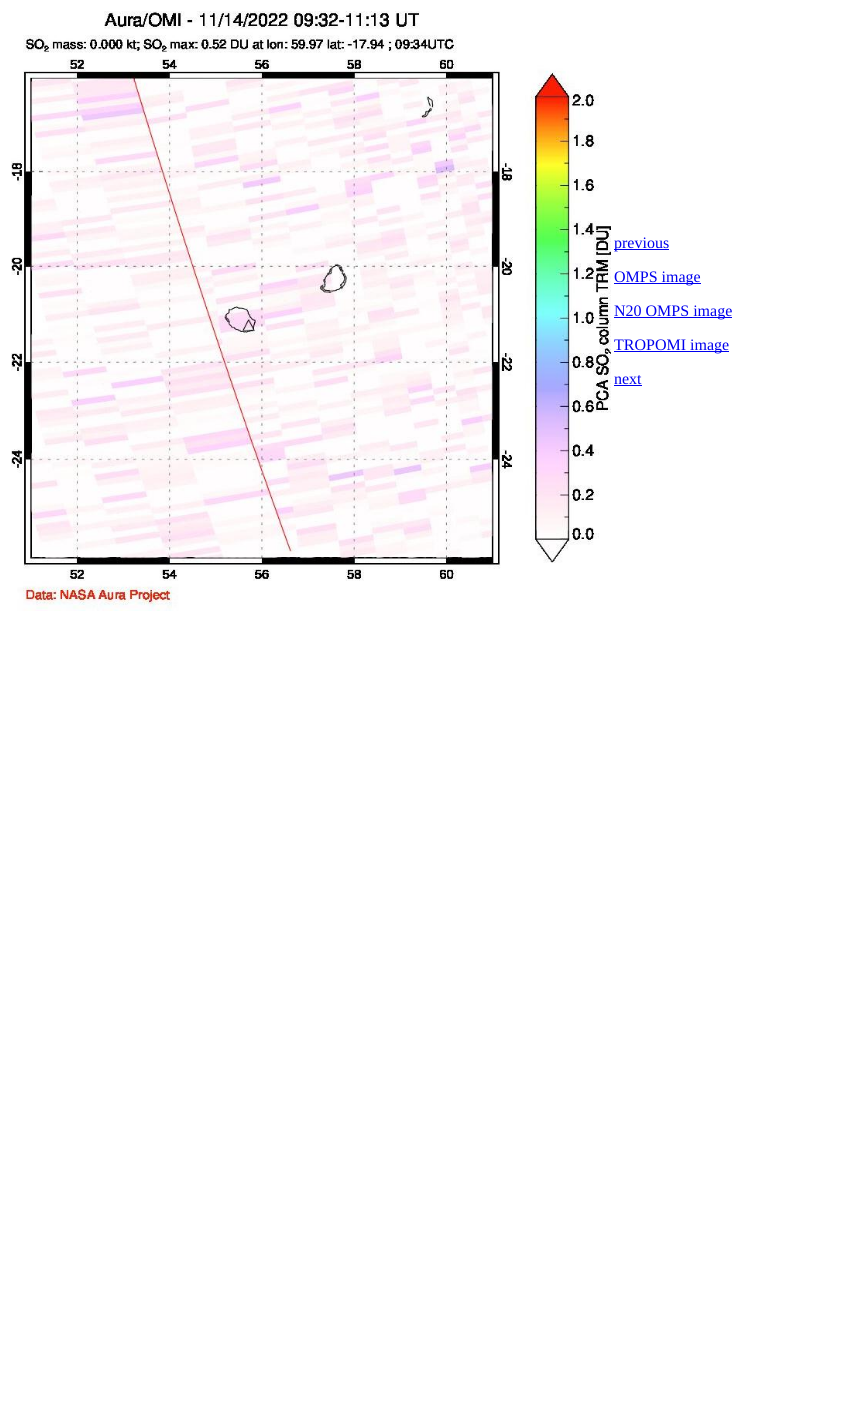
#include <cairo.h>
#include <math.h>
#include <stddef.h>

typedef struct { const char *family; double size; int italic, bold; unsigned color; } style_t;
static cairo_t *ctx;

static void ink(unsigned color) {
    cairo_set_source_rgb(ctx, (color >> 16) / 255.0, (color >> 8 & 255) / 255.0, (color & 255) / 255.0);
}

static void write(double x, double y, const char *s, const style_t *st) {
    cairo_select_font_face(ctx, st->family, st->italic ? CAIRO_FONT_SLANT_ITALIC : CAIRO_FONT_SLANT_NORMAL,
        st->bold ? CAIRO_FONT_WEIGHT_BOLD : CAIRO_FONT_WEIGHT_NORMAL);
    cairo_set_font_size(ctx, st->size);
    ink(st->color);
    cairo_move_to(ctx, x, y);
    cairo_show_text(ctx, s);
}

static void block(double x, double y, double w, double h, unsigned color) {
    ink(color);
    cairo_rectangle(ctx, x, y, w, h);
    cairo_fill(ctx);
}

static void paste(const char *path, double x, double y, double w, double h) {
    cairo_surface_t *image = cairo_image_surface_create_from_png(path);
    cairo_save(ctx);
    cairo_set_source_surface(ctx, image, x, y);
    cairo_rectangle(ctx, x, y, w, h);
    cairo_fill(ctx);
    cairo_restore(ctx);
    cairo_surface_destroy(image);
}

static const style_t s1 = {"Liberation Serif", 16, 0, 0, 0x0000ee};

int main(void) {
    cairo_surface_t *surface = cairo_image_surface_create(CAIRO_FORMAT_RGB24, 841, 1409);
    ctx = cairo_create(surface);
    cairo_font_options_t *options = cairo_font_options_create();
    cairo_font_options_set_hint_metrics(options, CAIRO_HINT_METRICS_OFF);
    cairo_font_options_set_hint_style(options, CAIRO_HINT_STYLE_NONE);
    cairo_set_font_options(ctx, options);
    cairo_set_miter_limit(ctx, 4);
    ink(0xffffff);
    cairo_paint(ctx);
    paste("pic1.png", 11, 11, 600, 600);
    block(614, 249, 55, 1, 0x0000ee);
    write(614, 248, "previous", &s1);
    block(614, 283, 87, 1, 0x0000ee);
    write(614, 282, "OMPS image", &s1);
    block(614, 317, 118, 1, 0x0000ee);
    write(614, 316, "N20 OMPS image", &s1);
    block(614, 351, 115, 1, 0x0000ee);
    write(614, 350, "TROPOMI image", &s1);
    write(614, 384, "next", &s1);
    block(614, 385, 28, 1, 0x0000ee);
    cairo_surface_write_to_png(surface, "screenshot.png");
    cairo_font_options_destroy(options);
    cairo_destroy(ctx);
    cairo_surface_destroy(surface);
    return 0;
}
